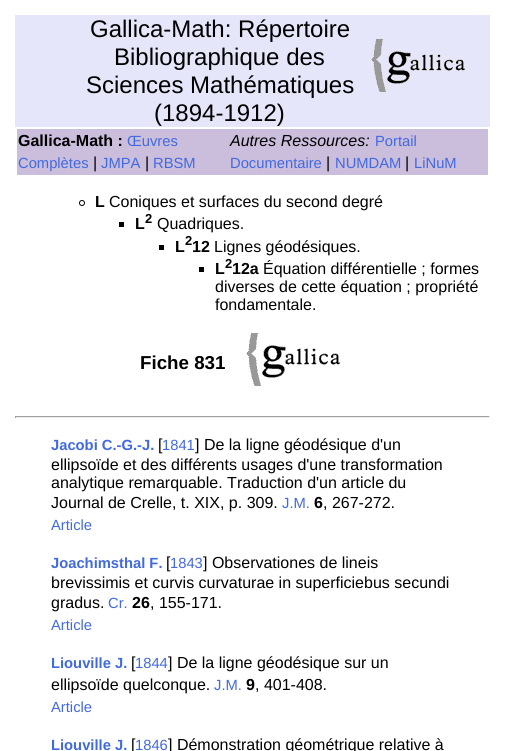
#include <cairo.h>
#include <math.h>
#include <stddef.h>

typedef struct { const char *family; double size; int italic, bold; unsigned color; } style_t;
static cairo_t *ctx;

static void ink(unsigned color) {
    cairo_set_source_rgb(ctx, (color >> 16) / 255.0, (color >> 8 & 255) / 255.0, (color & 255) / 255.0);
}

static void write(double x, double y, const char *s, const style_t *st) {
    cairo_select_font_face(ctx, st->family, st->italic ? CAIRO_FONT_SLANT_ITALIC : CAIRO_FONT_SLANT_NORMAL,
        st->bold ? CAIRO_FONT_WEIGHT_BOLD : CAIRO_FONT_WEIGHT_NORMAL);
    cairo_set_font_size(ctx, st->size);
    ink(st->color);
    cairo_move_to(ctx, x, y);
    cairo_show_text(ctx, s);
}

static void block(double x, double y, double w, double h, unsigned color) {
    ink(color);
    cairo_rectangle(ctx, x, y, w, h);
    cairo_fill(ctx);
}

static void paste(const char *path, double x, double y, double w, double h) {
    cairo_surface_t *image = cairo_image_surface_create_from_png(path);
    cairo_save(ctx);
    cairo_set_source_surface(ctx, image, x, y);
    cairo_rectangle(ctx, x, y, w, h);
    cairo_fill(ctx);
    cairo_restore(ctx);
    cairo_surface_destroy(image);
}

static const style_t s1 = {"Liberation Sans", 24, 0, 0, 0x000000};
static const style_t s2 = {"Liberation Sans", 16, 0, 1, 0x000000};
static const style_t s3 = {"Liberation Sans", 14.75, 0, 0, 0x4169e1};
static const style_t s4 = {"Liberation Sans", 16, 0, 0, 0x000000};
static const style_t s5 = {"Liberation Sans", 16, 1, 0, 0x000000};
static const style_t s6 = {"Liberation Sans", 13, 0, 1, 0x000000};
static const style_t s7 = {"Liberation Sans", 18.75, 0, 1, 0x000000};
static const style_t s8 = {"Liberation Sans", 14.75, 0, 1, 0x4169e1};

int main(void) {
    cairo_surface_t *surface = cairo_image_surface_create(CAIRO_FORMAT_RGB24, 505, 751);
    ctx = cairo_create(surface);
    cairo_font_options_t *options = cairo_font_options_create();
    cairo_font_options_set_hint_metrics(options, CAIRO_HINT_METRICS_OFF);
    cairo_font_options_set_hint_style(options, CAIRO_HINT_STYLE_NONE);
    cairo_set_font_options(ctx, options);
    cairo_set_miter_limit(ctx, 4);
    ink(0xffffff);
    cairo_paint(ctx);
    block(15, 15, 475, 112, 0xe6e6fa);
    write(90, 37, "Gallica-Math: Répertoire", &s1);
    write(114, 65, "Bibliographique des", &s1);
    write(86, 93, "Sciences Mathématiques", &s1);
    write(154, 121, "(1894-1912)", &s1);
    paste("pic1.png", 371, 39, 94, 53);
    block(17, 129, 471, 46, 0xcbbddc);
    write(18, 146, "Gallica-Math :", &s2);
    write(127, 146, "Œuvres", &s3);
    write(18, 168, "Complètes", &s3);
    write(93, 168, "|", &s4);
    write(101, 168, "JMPA", &s3);
    write(145, 168, "|", &s4);
    write(153, 168, "RBSM", &s3);
    write(230, 146, "Autres Ressources:", &s5);
    write(375, 146, "Portail", &s3);
    write(230, 168, "Documentaire", &s3);
    write(326, 168, "|", &s4);
    write(335, 168, "NUMDAM", &s3);
    write(405, 168, "|", &s4);
    write(414, 168, "LiNuM", &s3);
    cairo_new_path(ctx);
    cairo_arc(ctx, 82, 203, 2.5, 0, 2 * M_PI);
    ink(0x000000);
    cairo_set_line_width(ctx, 1);
    cairo_stroke(ctx);
    write(95, 207, "L", &s2);
    write(109, 207, "Coniques et surfaces du second degré", &s4);
    block(119, 222, 5, 5, 0x000000);
    write(135, 229, "L", &s2);
    write(145, 223, "2", &s6);
    write(157, 229, "Quadriques.", &s4);
    block(159, 245, 5, 5, 0x000000);
    write(175, 252, "L", &s2);
    write(185, 245, "2", &s6);
    write(192, 252, "12", &s2);
    write(214, 252, "Lignes géodésiques.", &s4);
    block(199, 267, 5, 5, 0x000000);
    write(215, 274, "L", &s2);
    write(225, 268, "2", &s6);
    write(232, 274, "12a", &s2);
    write(263, 274, "Équation différentielle ; formes", &s4);
    write(215, 292, "diverses de cette équation ; propriété", &s4);
    write(215, 310, "fondamentale.", &s4);
    write(140, 369, "Fiche 831", &s7);
    paste("pic2.png", 246, 333, 94, 53);
    block(15, 416, 475, 1, 0x9f9f9f);
    block(489, 416, 1, 2, 0xeeeeee);
    block(15, 417, 475, 1, 0xeeeeee);
    block(15, 416, 1, 2, 0x9f9f9f);
    write(51, 450, "Jacobi C.-G.-J.", &s8);
    write(158, 450, "[", &s4);
    write(162, 450, "1841", &s3);
    write(195, 450, "] De la ligne géodésique d'un", &s4);
    write(51, 470, "ellipsoïde et des différents usages d'une transformation", &s4);
    write(51, 488, "analytique remarquable. Traduction d'un article du", &s4);
    write(51, 508, "Journal de Crelle, t. XIX, p. 309.", &s4);
    write(282, 508, "J.M.", &s3);
    write(314, 508, "6", &s2);
    write(323, 508, ", 267-272.", &s4);
    write(51, 530, "Article", &s3);
    write(51, 568, "Joachimsthal F.", &s8);
    write(166, 568, "[", &s4);
    write(170, 568, "1843", &s3);
    write(203, 568, "] Observationes de lineis", &s4);
    write(51, 588, "brevissimis et curvis curvaturae in superficiebus secundi", &s4);
    write(51, 608, "gradus.", &s4);
    write(108, 608, "Cr.", &s3);
    write(132, 608, "26", &s2);
    write(150, 608, ", 155-171.", &s4);
    write(51, 630, "Article", &s3);
    write(51, 668, "Liouville J.", &s8);
    write(131, 668, "[", &s4);
    write(135, 668, "1844", &s3);
    write(168, 668, "] De la ligne géodésique sur un", &s4);
    write(51, 690, "ellipsoïde quelconque.", &s4);
    write(214, 690, "J.M.", &s3);
    write(246, 690, "9", &s2);
    write(255, 690, ", 401-408.", &s4);
    write(51, 712, "Article", &s3);
    write(51, 750, "Liouville J.", &s8);
    write(131, 750, "[", &s4);
    write(135, 750, "1846", &s3);
    write(168, 750, "] Démonstration géométrique relative à", &s4);
    cairo_surface_write_to_png(surface, "screenshot.png");
    cairo_font_options_destroy(options);
    cairo_destroy(ctx);
    cairo_surface_destroy(surface);
    return 0;
}
